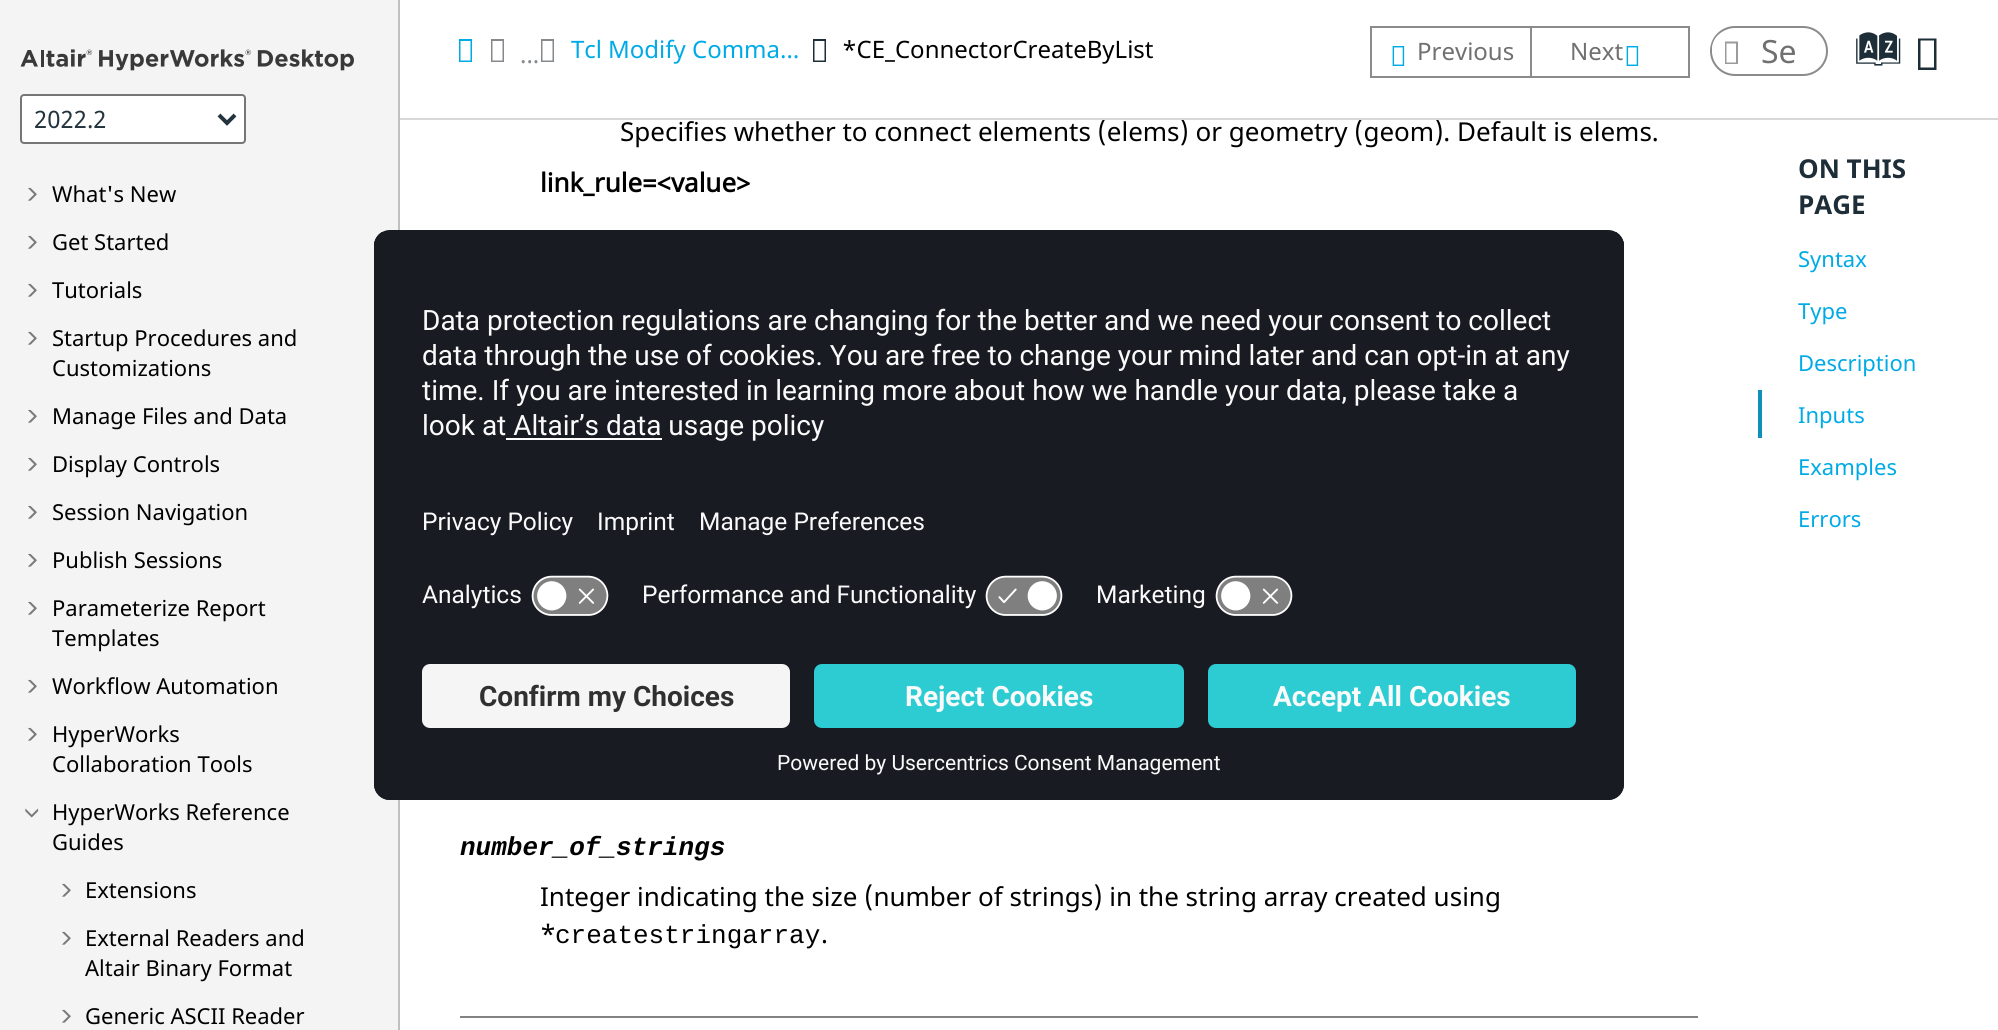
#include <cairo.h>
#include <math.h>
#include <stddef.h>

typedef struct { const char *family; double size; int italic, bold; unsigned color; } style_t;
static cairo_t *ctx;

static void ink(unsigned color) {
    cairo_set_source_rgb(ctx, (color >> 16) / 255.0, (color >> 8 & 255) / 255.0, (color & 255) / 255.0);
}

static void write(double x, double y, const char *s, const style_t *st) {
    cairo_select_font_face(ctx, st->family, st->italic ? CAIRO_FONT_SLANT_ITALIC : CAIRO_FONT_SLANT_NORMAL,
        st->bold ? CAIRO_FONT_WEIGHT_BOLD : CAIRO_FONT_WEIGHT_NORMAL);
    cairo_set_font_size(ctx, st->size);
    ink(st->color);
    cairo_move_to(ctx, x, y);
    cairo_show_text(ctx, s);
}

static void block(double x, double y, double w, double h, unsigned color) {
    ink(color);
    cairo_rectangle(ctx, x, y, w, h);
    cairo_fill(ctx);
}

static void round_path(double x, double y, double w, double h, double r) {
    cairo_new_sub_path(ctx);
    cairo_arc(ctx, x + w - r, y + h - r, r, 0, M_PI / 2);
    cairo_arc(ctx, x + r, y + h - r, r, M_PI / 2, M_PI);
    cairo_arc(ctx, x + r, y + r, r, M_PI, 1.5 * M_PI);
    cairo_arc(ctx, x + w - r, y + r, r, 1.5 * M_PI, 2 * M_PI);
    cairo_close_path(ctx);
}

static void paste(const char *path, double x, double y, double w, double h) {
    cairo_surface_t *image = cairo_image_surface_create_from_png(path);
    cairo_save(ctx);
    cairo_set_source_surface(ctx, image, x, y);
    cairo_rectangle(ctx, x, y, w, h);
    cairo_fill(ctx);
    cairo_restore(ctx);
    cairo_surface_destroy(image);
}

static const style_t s1 = {"Noto Sans", 24, 0, 0, 0x23343e};
static const style_t s2 = {"Noto Sans", 22, 0, 0, 0x000000};
static const style_t s3 = {"Noto Sans", 26, 0, 0, 0x000000};
static const style_t s4 = {"Noto Sans", 24, 0, 0, 0x85898d};
static const style_t s5 = {"Noto Sans", 24, 0, 0, 0x00aae6};
static const style_t s6 = {"Noto Sans", 24, 0, 0, 0x000000};
static const style_t s7 = {"Noto Sans", 24, 0, 0, 0x707070};
static const style_t s8 = {"Noto Sans", 32, 0, 0, 0x707070};
static const style_t s9 = {"Oxygen", 47, 0, 0, 0x1d2e38};
static const style_t s10 = {"Noto Sans", 26, 0, 1, 0x000000};
static const style_t s11 = {"Liberation Mono", 26, 1, 1, 0x000000};
static const style_t s12 = {"Liberation Mono", 26, 0, 0, 0x000000};
static const style_t s13 = {"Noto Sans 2", 26, 0, 1, 0x1d2e38};
static const style_t s14 = {"Noto Sans", 22, 0, 0, 0x00aae6};
static const style_t s15 = {"Roboto", 28, 0, 0, 0xfafafa};
static const style_t s16 = {"Roboto", 24.5, 0, 0, 0xfafafa};
static const style_t s17 = {"Roboto", 28, 0, 1, 0x303030};
static const style_t s18 = {"Roboto", 28, 0, 1, 0xfafafa};
static const style_t s19 = {"Roboto", 21, 0, 0, 0xfafafa};

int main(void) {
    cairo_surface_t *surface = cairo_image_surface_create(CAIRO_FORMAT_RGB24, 1998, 1030);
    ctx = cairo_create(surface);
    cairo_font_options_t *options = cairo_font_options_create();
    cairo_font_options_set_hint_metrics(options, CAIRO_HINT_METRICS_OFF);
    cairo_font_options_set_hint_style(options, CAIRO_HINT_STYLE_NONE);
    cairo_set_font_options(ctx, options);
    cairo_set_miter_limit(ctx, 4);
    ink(0xffffff);
    cairo_paint(ctx);
    block(0, 0, 398, 1030, 0xf4f4f4);
    block(398, 0, 2, 1030, 0xc0c0c0);
    paste("pic1.png", 20, 49, 334, 22);
    ink(0xffffff);
    round_path(21, 95, 224, 48, 3);
    cairo_fill_preserve(ctx);
    ink(0x767676);
    cairo_stroke(ctx);
    cairo_new_path(ctx);
    cairo_move_to(ctx, 219, 115);
    cairo_line_to(ctx, 227, 123);
    cairo_line_to(ctx, 235, 115);
    ink(0x23343e);
    cairo_set_line_width(ctx, 4);
    cairo_stroke(ctx);
    write(34, 128, "2022.2", &s1);
    paste("pic2.png", 28, 187, 9, 14);
    write(52, 202, "What's New", &s2);
    paste("pic2.png", 28, 235, 9, 14);
    write(52, 250, "Get Started", &s2);
    paste("pic2.png", 28, 283, 9, 14);
    write(52, 298, "Tutorials", &s2);
    paste("pic2.png", 28, 331, 9, 14);
    write(52, 346, "Startup Procedures and", &s2);
    write(52, 376, "Customizations", &s2);
    paste("pic2.png", 28, 409, 9, 14);
    write(52, 424, "Manage Files and Data", &s2);
    paste("pic2.png", 28, 457, 9, 14);
    write(52, 472, "Display Controls", &s2);
    paste("pic2.png", 28, 505, 9, 14);
    write(52, 520, "Session Navigation", &s2);
    paste("pic2.png", 28, 553, 9, 14);
    write(52, 568, "Publish Sessions", &s2);
    paste("pic2.png", 28, 601, 9, 14);
    write(52, 616, "Parameterize Report", &s2);
    write(52, 646, "Templates", &s2);
    paste("pic2.png", 28, 679, 9, 14);
    write(52, 694, "Workflow Automation", &s2);
    paste("pic2.png", 28, 727, 9, 14);
    write(52, 742, "HyperWorks", &s2);
    write(52, 772, "Collaboration Tools", &s2);
    paste("pic3.png", 25, 808, 14, 10);
    write(52, 820, "HyperWorks Reference", &s2);
    write(52, 850, "Guides", &s2);
    paste("pic2.png", 62, 883, 9, 14);
    write(85, 898, "Extensions", &s2);
    paste("pic2.png", 62, 931, 9, 14);
    write(85, 946, "External Readers and", &s2);
    write(85, 976, "Altair Binary Format", &s2);
    paste("pic2.png", 62, 1009, 9, 14);
    write(85, 1024, "Generic ASCII Reader", &s2);
    write(620, 141, "Specifies whether to connect elements (elems) or geometry (geom). Default is elems.", &s3);
    block(400, 118, 1598, 2, 0xd8d8d8);
    ink(0x00aae6);
    cairo_new_path(ctx);
    cairo_move_to(ctx, 459, 62);
    cairo_line_to(ctx, 459, 39);
    cairo_line_to(ctx, 472, 39);
    cairo_line_to(ctx, 472, 62);
    cairo_close_path(ctx);
    cairo_move_to(ctx, 460.5, 60.5);
    cairo_line_to(ctx, 470.5, 60.5);
    cairo_line_to(ctx, 470.5, 41);
    cairo_line_to(ctx, 460.5, 41);
    cairo_close_path(ctx);
    cairo_fill(ctx);
    ink(0x85898d);
    cairo_new_path(ctx);
    cairo_move_to(ctx, 491, 62);
    cairo_line_to(ctx, 491, 39);
    cairo_line_to(ctx, 504, 39);
    cairo_line_to(ctx, 504, 62);
    cairo_close_path(ctx);
    cairo_move_to(ctx, 492.5, 60.5);
    cairo_line_to(ctx, 502.5, 60.5);
    cairo_line_to(ctx, 502.5, 41);
    cairo_line_to(ctx, 492.5, 41);
    cairo_close_path(ctx);
    cairo_fill(ctx);
    write(520, 63, "...", &s4);
    cairo_new_path(ctx);
    cairo_move_to(ctx, 541, 62);
    cairo_line_to(ctx, 541, 39);
    cairo_line_to(ctx, 554, 39);
    cairo_line_to(ctx, 554, 62);
    cairo_close_path(ctx);
    cairo_move_to(ctx, 542.5, 60.5);
    cairo_line_to(ctx, 552.5, 60.5);
    cairo_line_to(ctx, 552.5, 41);
    cairo_line_to(ctx, 542.5, 41);
    cairo_close_path(ctx);
    cairo_fill(ctx);
    write(571, 58, "Tcl", &s5);
    write(608, 58, "Modify Comma…", &s5);
    ink(0x1d2e38);
    cairo_new_path(ctx);
    cairo_move_to(ctx, 813, 62);
    cairo_line_to(ctx, 813, 39);
    cairo_line_to(ctx, 826, 39);
    cairo_line_to(ctx, 826, 62);
    cairo_close_path(ctx);
    cairo_move_to(ctx, 814.5, 60.5);
    cairo_line_to(ctx, 824.5, 60.5);
    cairo_line_to(ctx, 824.5, 41);
    cairo_line_to(ctx, 814.5, 41);
    cairo_close_path(ctx);
    cairo_fill(ctx);
    write(842, 58, "*CE_ConnectorCreateByList", &s6);
    block(1370, 26, 160, 2, 0x8b8b8b);
    block(1370, 76, 160, 2, 0x8b8b8b);
    block(1370, 26, 2, 52, 0x8b8b8b);
    paste("pic4.png", 1392, 46, 13, 20);
    write(1417, 60, "Previous", &s7);
    cairo_rectangle(ctx, 1531, 27, 158, 50);
    ink(0x8b8b8b);
    cairo_set_line_width(ctx, 2);
    cairo_stroke(ctx);
    write(1570, 60, "Next", &s7);
    paste("pic4.png", 1626, 46, 13, 20);
    round_path(1711, 27, 116, 48, 24);
    ink(0x8b8b8b);
    cairo_stroke(ctx);
    ink(0xffffff);
    round_path(1712, 30, 40, 38, 19);
    cairo_fill(ctx);
    ink(0x9b9b9b);
    cairo_new_path(ctx);
    cairo_move_to(ctx, 1725, 64);
    cairo_line_to(ctx, 1725, 41.5);
    cairo_line_to(ctx, 1738, 41.5);
    cairo_line_to(ctx, 1738, 64);
    cairo_close_path(ctx);
    cairo_move_to(ctx, 1726.5, 62.5);
    cairo_line_to(ctx, 1736, 62.5);
    cairo_line_to(ctx, 1736, 43.5);
    cairo_line_to(ctx, 1726.5, 43.5);
    cairo_close_path(ctx);
    cairo_fill(ctx);
    write(1761, 63, "Se", &s8);
    write(1861, 71, "a", &s9);
    cairo_new_path(ctx);
    cairo_move_to(ctx, 1918, 70);
    cairo_line_to(ctx, 1918, 38.5);
    cairo_line_to(ctx, 1936.5, 38.5);
    cairo_line_to(ctx, 1936.5, 70);
    cairo_close_path(ctx);
    cairo_move_to(ctx, 1920.5, 67.5);
    cairo_line_to(ctx, 1934, 67.5);
    cairo_line_to(ctx, 1934, 40.5);
    cairo_line_to(ctx, 1920.5, 40.5);
    cairo_close_path(ctx);
    cairo_fill(ctx);
    write(540, 192, "link_rule=<value>", &s10);
    write(460, 855, "number_of_strings", &s11);
    write(540, 906, "Integer indicating the size (number of strings) in the string array created using", &s3);
    write(540, 943, "*", &s3);
    write(555, 943, "createstringarray", &s12);
    write(821, 943, ".", &s3);
    block(460, 1016, 1238, 2, 0x828282);
    write(1798, 178, "ON THIS", &s13);
    write(1798, 214, "PAGE", &s13);
    write(1798, 267, "Syntax", &s14);
    write(1798, 319, "Type", &s14);
    write(1798, 371, "Description", &s14);
    block(1758, 390, 4, 48, 0x0e8fbc);
    write(1798, 423, "Inputs", &s14);
    write(1798, 475, "Examples", &s14);
    write(1798, 527, "Errors", &s14);
    ink(0x191b23);
    round_path(374, 230, 1250, 570, 16);
    cairo_fill(ctx);
    cairo_save(ctx);
    round_path(374, 230, 1250, 570, 16);
    cairo_clip(ctx);
    cairo_new_path(ctx);
    cairo_move_to(ctx, 390, 230);
    cairo_line_to(ctx, 1608, 230);
    cairo_curve_to(ctx, 1617, 230, 1624, 237, 1624, 246);
    cairo_line_to(ctx, 1624, 648);
    cairo_line_to(ctx, 374, 648);
    cairo_line_to(ctx, 374, 246);
    cairo_curve_to(ctx, 374, 237, 381, 230, 390, 230);
    cairo_close_path(ctx);
    cairo_clip(ctx);
    block(374, 232, 1250, 416, 0x191b23);
    block(374, 232, 1250, 336, 0x191b23);
    cairo_restore(ctx);
    write(422, 330, "Data protection regulations are changing for the better and we need your consent to collect", &s15);
    write(422, 365, "data through the use of cookies. You are free to change your mind later and can opt-in at any", &s15);
    write(422, 400, "time. If you are interested in learning more about how we handle your data, please take a", &s15);
    write(422, 435, "look at Altair’s data usage policy", &s15);
    block(506, 438, 156, 2, 0xffffff);
    write(422, 530, "Privacy Policy", &s16);
    write(597, 530, "Imprint", &s16);
    write(699, 530, "Manage Preferences", &s16);
    write(422, 603, "Analytics", &s16);
    paste("pic5.png", 531, 575, 78, 41);
    write(642, 603, "Performance and Functionality", &s16);
    paste("pic6.png", 985, 575, 78, 41);
    write(1096, 603, "Marketing", &s16);
    paste("pic5.png", 1215, 575, 78, 41);
    ink(0x191b23);
    cairo_new_path(ctx);
    cairo_move_to(ctx, 374, 648);
    cairo_line_to(ctx, 1624, 648);
    cairo_line_to(ctx, 1624, 784);
    cairo_curve_to(ctx, 1624, 793, 1617, 800, 1608, 800);
    cairo_line_to(ctx, 390, 800);
    cairo_curve_to(ctx, 381, 800, 374, 793, 374, 784);
    cairo_close_path(ctx);
    cairo_fill(ctx);
    ink(0xf5f5f5);
    round_path(422, 664, 368, 64, 8);
    cairo_fill(ctx);
    write(479, 706, "Confirm my Choices", &s17);
    ink(0x2dccd3);
    round_path(814, 664, 370, 64, 8);
    cairo_fill(ctx);
    write(905, 706, "Reject Cookies", &s18);
    ink(0x2dccd3);
    round_path(1208, 664, 368, 64, 8);
    cairo_fill(ctx);
    write(1273, 706, "Accept All Cookies", &s18);
    write(777, 770, "Powered by Usercentrics Consent Management", &s19);
    cairo_surface_write_to_png(surface, "screenshot.png");
    cairo_font_options_destroy(options);
    cairo_destroy(ctx);
    cairo_surface_destroy(surface);
    return 0;
}
